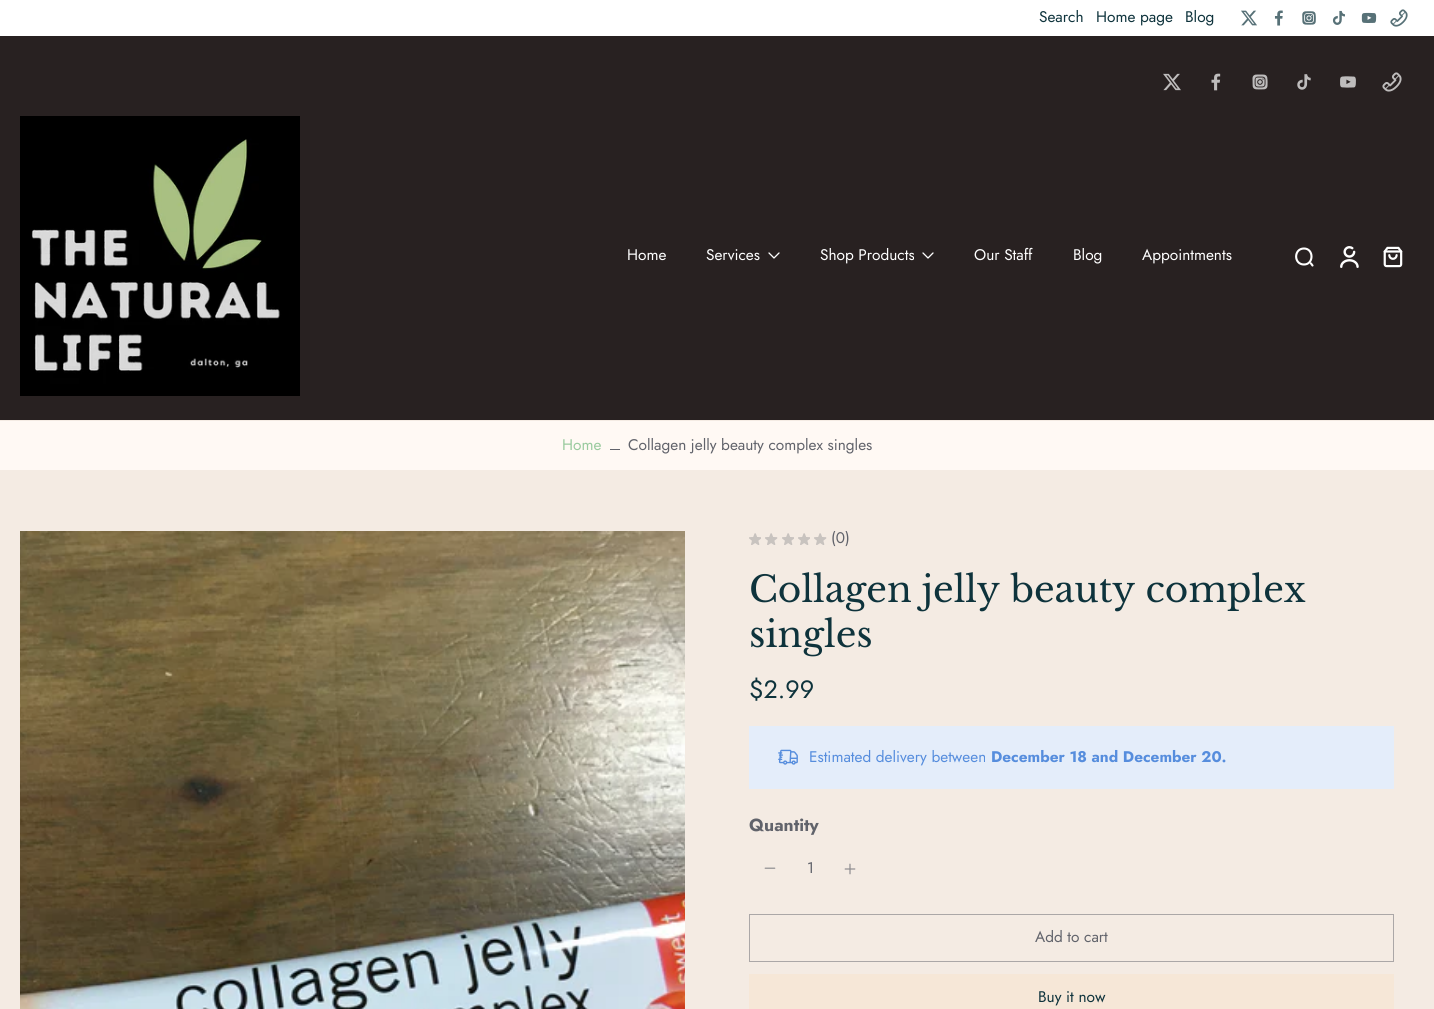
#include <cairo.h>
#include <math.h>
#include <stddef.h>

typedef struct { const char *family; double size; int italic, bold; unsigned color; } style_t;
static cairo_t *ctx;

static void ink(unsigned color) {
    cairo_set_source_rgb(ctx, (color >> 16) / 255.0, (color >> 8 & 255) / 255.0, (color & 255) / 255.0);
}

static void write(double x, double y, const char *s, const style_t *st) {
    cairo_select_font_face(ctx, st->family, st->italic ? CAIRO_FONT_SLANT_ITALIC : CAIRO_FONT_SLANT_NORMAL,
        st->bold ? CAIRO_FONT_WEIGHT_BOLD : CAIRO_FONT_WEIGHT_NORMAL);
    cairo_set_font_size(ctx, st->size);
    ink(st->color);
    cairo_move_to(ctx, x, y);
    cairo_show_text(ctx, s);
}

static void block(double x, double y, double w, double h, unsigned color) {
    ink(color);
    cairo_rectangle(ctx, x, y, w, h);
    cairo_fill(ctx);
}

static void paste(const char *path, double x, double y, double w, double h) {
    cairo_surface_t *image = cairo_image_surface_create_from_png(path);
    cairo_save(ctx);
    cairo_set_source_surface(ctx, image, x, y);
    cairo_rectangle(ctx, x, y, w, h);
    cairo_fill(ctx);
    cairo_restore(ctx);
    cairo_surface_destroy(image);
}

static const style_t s1 = {"Jost", 15.4, 0, 0, 0x0e333c};
static const style_t s2 = {"Jost", 15.4, 0, 0, 0xffffff};
static const style_t s3 = {"Jost", 15.4, 0, 0, 0x99ca9e};
static const style_t s4 = {"Jost", 15.4, 0, 0, 0x61636b};
static const style_t s5 = {"Libre Baskerville", 36, 0, 0, 0x0e333c};
static const style_t s6 = {"Jost", 25, 0, 0, 0x0e333c};
static const style_t s7 = {"Jost", 15.4, 0, 0, 0x568ddd};
static const style_t s8 = {"Jost", 15.4, 0, 1, 0x568ddd};
static const style_t s9 = {"Jost", 17.5, 0, 1, 0x61636b};

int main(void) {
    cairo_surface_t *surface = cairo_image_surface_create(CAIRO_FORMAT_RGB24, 1434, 1009);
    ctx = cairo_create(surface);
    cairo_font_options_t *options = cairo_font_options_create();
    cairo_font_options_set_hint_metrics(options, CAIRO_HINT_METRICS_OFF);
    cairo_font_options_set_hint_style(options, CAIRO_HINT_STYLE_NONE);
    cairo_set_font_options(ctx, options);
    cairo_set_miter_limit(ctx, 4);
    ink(0xf4ebe3);
    cairo_paint(ctx);
    block(0, 0, 1434, 36, 0xffffff);
    write(1039, 22, "Search", &s1);
    write(1096, 22, "Home page", &s1);
    write(1185, 22, "Blog", &s1);
    paste("pic1.png", 1241, 10, 16, 16);
    paste("pic2.png", 1274, 10, 9, 16);
    paste("pic3.png", 1302, 11, 14, 14);
    paste("pic4.png", 1332, 10, 13, 15);
    paste("pic5.png", 1361, 12, 16, 11);
    paste("pic6.png", 1390, 9, 18, 18);
    block(0, 36, 1434, 384, 0x282121);
    paste("pic7.png", 1163, 73, 18, 18);
    paste("pic8.png", 1211, 73, 10, 18);
    paste("pic9.png", 1252, 74, 16, 16);
    paste("pic10.png", 1297, 74, 14, 16);
    paste("pic11.png", 1340, 76, 16, 12);
    paste("pic12.png", 1382, 72, 20, 20);
    paste("pic13.png", 20, 116, 280, 280);
    write(627, 260, "Home", &s2);
    write(706, 260, "Services", &s2);
    cairo_new_path(ctx);
    cairo_move_to(ctx, 769, 253);
    cairo_line_to(ctx, 774, 258);
    cairo_line_to(ctx, 779, 253);
    cairo_set_line_width(ctx, 1.3);
    cairo_set_line_cap(ctx, CAIRO_LINE_CAP_ROUND);
    cairo_set_line_join(ctx, CAIRO_LINE_JOIN_ROUND);
    cairo_stroke(ctx);
    write(820, 260, "Shop Products", &s2);
    cairo_new_path(ctx);
    cairo_move_to(ctx, 923, 253);
    cairo_line_to(ctx, 928, 258);
    cairo_line_to(ctx, 933, 253);
    cairo_stroke(ctx);
    write(974, 260, "Our Staff", &s2);
    write(1073, 260, "Blog", &s2);
    write(1142, 260, "Appointments", &s2);
    cairo_new_path(ctx);
    cairo_move_to(ctx, 1304, 264.5);
    cairo_curve_to(ctx, 1314, 264.5, 1314, 248.5, 1304, 248.5);
    cairo_curve_to(ctx, 1293.5, 248.5, 1293.5, 264.5, 1304, 264.5);
    cairo_close_path(ctx);
    cairo_move_to(ctx, 1312.5, 265.5);
    cairo_line_to(ctx, 1311, 263.5);
    cairo_set_line_width(ctx, 2.1);
    cairo_stroke(ctx);
    paste("pic14.png", 1340, 246, 19, 22);
    paste("pic15.png", 1383, 246, 20, 22);
    block(0, 421, 1434, 49, 0xfff9f4);
    write(562, 450, "Home", &s3);
    block(610, 449, 10, 1, 0x61636b);
    write(628, 450, "Collagen jelly beauty complex singles", &s4);
    paste("pic16.png", 20, 531, 665, 478);
    paste("pic17.png", 749, 533, 12, 12);
    paste("pic18.png", 765, 533, 13, 12);
    paste("pic17.png", 782, 533, 12, 12);
    paste("pic17.png", 798, 533, 12, 12);
    paste("pic18.png", 814, 533, 13, 12);
    write(831, 543, "(0)", &s4);
    write(749, 602, "Collagen jelly beauty complex", &s5);
    write(749, 647, "singles", &s5);
    write(749, 698, "$2.99", &s6);
    block(749, 726, 645, 63, 0xe4edfa);
    paste("pic19.png", 778, 749, 20, 16);
    write(809, 762, "Estimated delivery between", &s7);
    write(991, 762, "December 18 and December 20.", &s8);
    write(749, 831, "Quantity", &s9);
    paste("pic20.png", 764, 867, 12, 2);
    write(807, 873, "1", &s4);
    paste("pic21.png", 844, 863, 12, 12);
    cairo_rectangle(ctx, 749.5, 914.5, 644, 47);
    ink(0xaba7a7);
    cairo_set_line_width(ctx, 1);
    cairo_set_line_cap(ctx, CAIRO_LINE_CAP_BUTT);
    cairo_set_line_join(ctx, CAIRO_LINE_JOIN_MITER);
    cairo_stroke(ctx);
    write(1035, 942, "Add to cart", &s4);
    block(749, 974, 645, 35, 0xf6e7d7);
    write(1038, 1002, "Buy it now", &s1);
    cairo_surface_write_to_png(surface, "screenshot.png");
    cairo_font_options_destroy(options);
    cairo_destroy(ctx);
    cairo_surface_destroy(surface);
    return 0;
}
